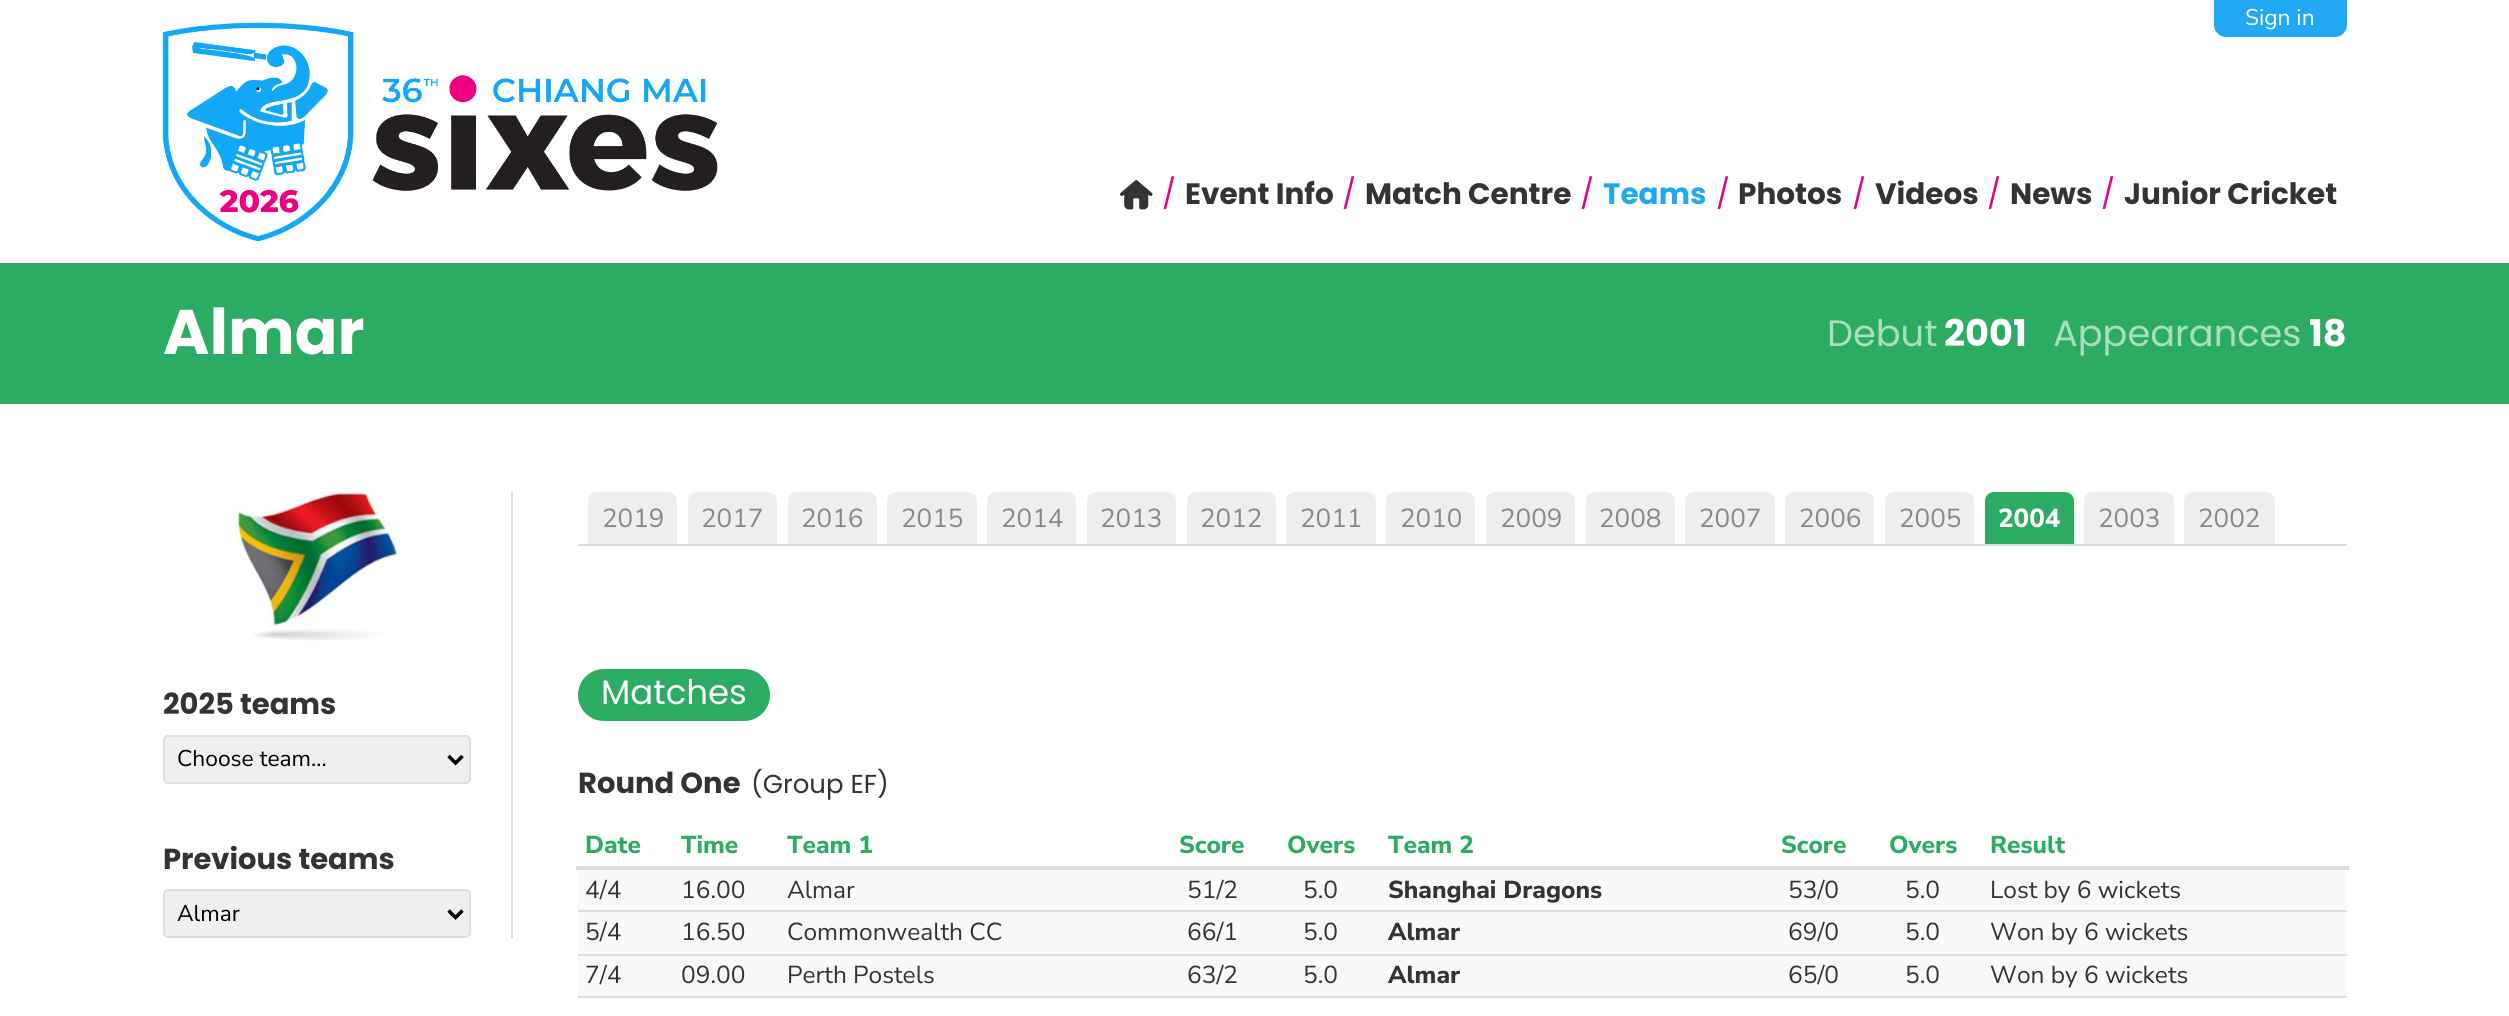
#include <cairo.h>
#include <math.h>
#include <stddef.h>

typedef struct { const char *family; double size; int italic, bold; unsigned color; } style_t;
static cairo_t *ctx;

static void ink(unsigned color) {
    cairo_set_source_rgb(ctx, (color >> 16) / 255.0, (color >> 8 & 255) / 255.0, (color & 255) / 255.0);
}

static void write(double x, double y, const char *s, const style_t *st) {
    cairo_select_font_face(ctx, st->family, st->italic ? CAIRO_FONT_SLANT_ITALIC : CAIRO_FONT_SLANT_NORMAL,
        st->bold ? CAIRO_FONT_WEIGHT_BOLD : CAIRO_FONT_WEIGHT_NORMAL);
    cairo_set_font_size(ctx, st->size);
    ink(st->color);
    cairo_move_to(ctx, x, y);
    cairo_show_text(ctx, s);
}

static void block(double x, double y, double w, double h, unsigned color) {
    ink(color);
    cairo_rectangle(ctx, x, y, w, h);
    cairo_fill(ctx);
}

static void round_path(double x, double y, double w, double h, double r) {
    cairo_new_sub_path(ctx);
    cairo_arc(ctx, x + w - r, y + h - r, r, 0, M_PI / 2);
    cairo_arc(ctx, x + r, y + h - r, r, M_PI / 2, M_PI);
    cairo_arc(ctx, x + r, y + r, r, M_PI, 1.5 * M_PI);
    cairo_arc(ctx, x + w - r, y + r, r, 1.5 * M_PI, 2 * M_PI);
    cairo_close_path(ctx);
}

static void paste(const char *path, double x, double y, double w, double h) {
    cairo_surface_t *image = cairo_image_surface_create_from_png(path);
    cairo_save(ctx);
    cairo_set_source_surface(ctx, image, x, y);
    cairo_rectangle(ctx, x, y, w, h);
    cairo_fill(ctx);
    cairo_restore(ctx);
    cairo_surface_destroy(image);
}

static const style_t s1 = {"Nunito Sans", 22.75, 0, 0, 0xffffff};
static const style_t s2 = {"Poppins", 29.5, 0, 0, 0xe10585};
static const style_t s3 = {"Poppins", 29.5, 0, 1, 0x333333};
static const style_t s4 = {"Poppins", 29.5, 0, 1, 0x21a7f4};
static const style_t s5 = {"Poppins", 63, 0, 1, 0xffffff};
static const style_t s6 = {"Poppins", 36.75, 0, 0, 0xabddc0};
static const style_t s7 = {"Poppins", 36.75, 0, 1, 0xffffff};
static const style_t s8 = {"Poppins", 29, 0, 1, 0x333333};
static const style_t s9 = {"Nunito Sans", 22.75, 0, 0, 0x000000};
static const style_t s10 = {"Nunito Sans", 26, 0, 0, 0x888888};
static const style_t s11 = {"Nunito Sans ExtraBold", 26, 0, 0, 0xffffff};
static const style_t s12 = {"Poppins", 34, 0, 0, 0xffffff};
static const style_t s13 = {"Poppins", 26, 0, 0, 0x333333};
static const style_t s14 = {"Nunito Sans ExtraBold", 24.5, 0, 0, 0x2cab62};
static const style_t s15 = {"Nunito Sans", 24.5, 0, 0, 0x333333};
static const style_t s16 = {"Nunito Sans ExtraBold", 24.5, 0, 0, 0x333333};

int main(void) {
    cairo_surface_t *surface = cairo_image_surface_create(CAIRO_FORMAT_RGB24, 2509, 1016);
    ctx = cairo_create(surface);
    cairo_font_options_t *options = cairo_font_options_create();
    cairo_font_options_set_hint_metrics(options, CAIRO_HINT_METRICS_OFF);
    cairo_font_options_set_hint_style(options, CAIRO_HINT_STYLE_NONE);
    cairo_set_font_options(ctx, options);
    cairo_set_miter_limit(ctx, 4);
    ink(0xffffff);
    cairo_paint(ctx);
    ink(0x21a7f4);
    cairo_new_path(ctx);
    cairo_move_to(ctx, 2214, 0);
    cairo_line_to(ctx, 2347, 0);
    cairo_line_to(ctx, 2347, 25);
    cairo_curve_to(ctx, 2347, 31.5, 2341.5, 37, 2335, 37);
    cairo_line_to(ctx, 2226, 37);
    cairo_curve_to(ctx, 2219.5, 37, 2214, 31.5, 2214, 25);
    cairo_close_path(ctx);
    cairo_fill(ctx);
    write(2245, 25, "Sign in", &s1);
    paste("pic1.png", 162, 22, 556, 220);
    paste("pic2.png", 1120, 180, 33, 30);
    write(1162, 204, "/", &s2);
    write(1185, 204, "Event Info", &s3);
    write(1342, 204, "/", &s2);
    write(1365, 204, "Match Centre", &s3);
    write(1580, 204, "/", &s2);
    write(1603, 204, "Teams", &s4);
    write(1716, 204, "/", &s2);
    write(1738, 204, "Photos", &s3);
    write(1852, 204, "/", &s2);
    write(1875, 204, "Videos", &s3);
    write(1987, 204, "/", &s2);
    write(2010, 204, "News", &s3);
    write(2101, 204, "/", &s2);
    write(2124, 204, "Junior Cricket", &s3);
    block(0, 263, 2509, 141, 0x2cab62);
    write(163, 354, "Almar", &s5);
    write(1827, 346, "Debut", &s6);
    write(1944, 346, "2001", &s7);
    write(2053, 346, "Appearances", &s6);
    write(2309, 346, "18", &s7);
    block(511, 492, 2, 446, 0xdddddd);
    paste("pic3.png", 236, 492, 162, 149);
    write(163, 714, "2025 teams", &s8);
    ink(0xefefef);
    round_path(164, 736, 306, 47, 4);
    cairo_fill_preserve(ctx);
    ink(0xdddddd);
    cairo_stroke(ctx);
    cairo_new_path(ctx);
    cairo_move_to(ctx, 448.5, 756);
    cairo_line_to(ctx, 455.5, 763);
    cairo_line_to(ctx, 462.5, 756);
    ink(0x000000);
    cairo_set_line_width(ctx, 3.5);
    cairo_stroke(ctx);
    write(177, 766, "Choose team...", &s9);
    write(163, 869, "Previous teams", &s8);
    ink(0xefefef);
    round_path(164, 890, 306, 47, 4);
    cairo_fill_preserve(ctx);
    ink(0xdddddd);
    cairo_set_line_width(ctx, 2);
    cairo_stroke(ctx);
    cairo_new_path(ctx);
    cairo_move_to(ctx, 448.5, 910.5);
    cairo_line_to(ctx, 455.5, 917.5);
    cairo_line_to(ctx, 462.5, 910.5);
    ink(0x000000);
    cairo_set_line_width(ctx, 3.5);
    cairo_stroke(ctx);
    write(177, 921, "Almar", &s9);
    block(578, 544, 1769, 2, 0xd9d9d9);
    ink(0xeeeeee);
    cairo_new_path(ctx);
    cairo_move_to(ctx, 597, 492);
    cairo_line_to(ctx, 668, 492);
    cairo_curve_to(ctx, 673, 492, 677, 496, 677, 501);
    cairo_line_to(ctx, 677, 544);
    cairo_line_to(ctx, 588, 544);
    cairo_line_to(ctx, 588, 501);
    cairo_curve_to(ctx, 588, 496, 592, 492, 597, 492);
    cairo_close_path(ctx);
    cairo_fill(ctx);
    write(602, 527, "2019", &s10);
    ink(0xeeeeee);
    cairo_new_path(ctx);
    cairo_move_to(ctx, 697, 492);
    cairo_line_to(ctx, 768, 492);
    cairo_curve_to(ctx, 773, 492, 777, 496, 777, 501);
    cairo_line_to(ctx, 777, 544);
    cairo_line_to(ctx, 688, 544);
    cairo_line_to(ctx, 688, 501);
    cairo_curve_to(ctx, 688, 496, 692, 492, 697, 492);
    cairo_close_path(ctx);
    cairo_fill(ctx);
    write(701, 527, "2017", &s10);
    ink(0xeeeeee);
    cairo_new_path(ctx);
    cairo_move_to(ctx, 797, 492);
    cairo_line_to(ctx, 868, 492);
    cairo_curve_to(ctx, 873, 492, 877, 496, 877, 501);
    cairo_line_to(ctx, 877, 544);
    cairo_line_to(ctx, 788, 544);
    cairo_line_to(ctx, 788, 501);
    cairo_curve_to(ctx, 788, 496, 792, 492, 797, 492);
    cairo_close_path(ctx);
    cairo_fill(ctx);
    write(801, 527, "2016", &s10);
    ink(0xeeeeee);
    cairo_new_path(ctx);
    cairo_move_to(ctx, 896, 492);
    cairo_line_to(ctx, 968, 492);
    cairo_curve_to(ctx, 973, 492, 977, 496, 977, 501);
    cairo_line_to(ctx, 977, 544);
    cairo_line_to(ctx, 887, 544);
    cairo_line_to(ctx, 887, 501);
    cairo_curve_to(ctx, 887, 496, 891, 492, 896, 492);
    cairo_close_path(ctx);
    cairo_fill(ctx);
    write(901, 527, "2015", &s10);
    ink(0xeeeeee);
    cairo_new_path(ctx);
    cairo_move_to(ctx, 996, 492);
    cairo_line_to(ctx, 1067, 492);
    cairo_curve_to(ctx, 1072, 492, 1076, 496, 1076, 501);
    cairo_line_to(ctx, 1076, 544);
    cairo_line_to(ctx, 987, 544);
    cairo_line_to(ctx, 987, 501);
    cairo_curve_to(ctx, 987, 496, 991, 492, 996, 492);
    cairo_close_path(ctx);
    cairo_fill(ctx);
    write(1001, 527, "2014", &s10);
    ink(0xeeeeee);
    cairo_new_path(ctx);
    cairo_move_to(ctx, 1096, 492);
    cairo_line_to(ctx, 1167, 492);
    cairo_curve_to(ctx, 1172, 492, 1176, 496, 1176, 501);
    cairo_line_to(ctx, 1176, 544);
    cairo_line_to(ctx, 1087, 544);
    cairo_line_to(ctx, 1087, 501);
    cairo_curve_to(ctx, 1087, 496, 1091, 492, 1096, 492);
    cairo_close_path(ctx);
    cairo_fill(ctx);
    write(1100, 527, "2013", &s10);
    ink(0xeeeeee);
    cairo_new_path(ctx);
    cairo_move_to(ctx, 1196, 492);
    cairo_line_to(ctx, 1267, 492);
    cairo_curve_to(ctx, 1272, 492, 1276, 496, 1276, 501);
    cairo_line_to(ctx, 1276, 544);
    cairo_line_to(ctx, 1187, 544);
    cairo_line_to(ctx, 1187, 501);
    cairo_curve_to(ctx, 1187, 496, 1191, 492, 1196, 492);
    cairo_close_path(ctx);
    cairo_fill(ctx);
    write(1200, 527, "2012", &s10);
    ink(0xeeeeee);
    cairo_new_path(ctx);
    cairo_move_to(ctx, 1295, 492);
    cairo_line_to(ctx, 1367, 492);
    cairo_curve_to(ctx, 1372, 492, 1376, 496, 1376, 501);
    cairo_line_to(ctx, 1376, 544);
    cairo_line_to(ctx, 1286, 544);
    cairo_line_to(ctx, 1286, 501);
    cairo_curve_to(ctx, 1286, 496, 1290, 492, 1295, 492);
    cairo_close_path(ctx);
    cairo_fill(ctx);
    write(1300, 527, "2011", &s10);
    ink(0xeeeeee);
    cairo_new_path(ctx);
    cairo_move_to(ctx, 1395, 492);
    cairo_line_to(ctx, 1466, 492);
    cairo_curve_to(ctx, 1471, 492, 1475, 496, 1475, 501);
    cairo_line_to(ctx, 1475, 544);
    cairo_line_to(ctx, 1386, 544);
    cairo_line_to(ctx, 1386, 501);
    cairo_curve_to(ctx, 1386, 496, 1390, 492, 1395, 492);
    cairo_close_path(ctx);
    cairo_fill(ctx);
    write(1400, 527, "2010", &s10);
    ink(0xeeeeee);
    cairo_new_path(ctx);
    cairo_move_to(ctx, 1495, 492);
    cairo_line_to(ctx, 1566, 492);
    cairo_curve_to(ctx, 1571, 492, 1575, 496, 1575, 501);
    cairo_line_to(ctx, 1575, 544);
    cairo_line_to(ctx, 1486, 544);
    cairo_line_to(ctx, 1486, 501);
    cairo_curve_to(ctx, 1486, 496, 1490, 492, 1495, 492);
    cairo_close_path(ctx);
    cairo_fill(ctx);
    write(1500, 527, "2009", &s10);
    ink(0xeeeeee);
    cairo_new_path(ctx);
    cairo_move_to(ctx, 1595, 492);
    cairo_line_to(ctx, 1666, 492);
    cairo_curve_to(ctx, 1671, 492, 1675, 496, 1675, 501);
    cairo_line_to(ctx, 1675, 544);
    cairo_line_to(ctx, 1586, 544);
    cairo_line_to(ctx, 1586, 501);
    cairo_curve_to(ctx, 1586, 496, 1590, 492, 1595, 492);
    cairo_close_path(ctx);
    cairo_fill(ctx);
    write(1599, 527, "2008", &s10);
    ink(0xeeeeee);
    cairo_new_path(ctx);
    cairo_move_to(ctx, 1694, 492);
    cairo_line_to(ctx, 1766, 492);
    cairo_curve_to(ctx, 1771, 492, 1775, 496, 1775, 501);
    cairo_line_to(ctx, 1775, 544);
    cairo_line_to(ctx, 1685, 544);
    cairo_line_to(ctx, 1685, 501);
    cairo_curve_to(ctx, 1685, 496, 1689, 492, 1694, 492);
    cairo_close_path(ctx);
    cairo_fill(ctx);
    write(1699, 527, "2007", &s10);
    ink(0xeeeeee);
    cairo_new_path(ctx);
    cairo_move_to(ctx, 1794, 492);
    cairo_line_to(ctx, 1865, 492);
    cairo_curve_to(ctx, 1870, 492, 1874, 496, 1874, 501);
    cairo_line_to(ctx, 1874, 544);
    cairo_line_to(ctx, 1785, 544);
    cairo_line_to(ctx, 1785, 501);
    cairo_curve_to(ctx, 1785, 496, 1789, 492, 1794, 492);
    cairo_close_path(ctx);
    cairo_fill(ctx);
    write(1799, 527, "2006", &s10);
    ink(0xeeeeee);
    cairo_new_path(ctx);
    cairo_move_to(ctx, 1894, 492);
    cairo_line_to(ctx, 1965, 492);
    cairo_curve_to(ctx, 1970, 492, 1974, 496, 1974, 501);
    cairo_line_to(ctx, 1974, 544);
    cairo_line_to(ctx, 1885, 544);
    cairo_line_to(ctx, 1885, 501);
    cairo_curve_to(ctx, 1885, 496, 1889, 492, 1894, 492);
    cairo_close_path(ctx);
    cairo_fill(ctx);
    write(1899, 527, "2005", &s10);
    ink(0x2cab62);
    cairo_new_path(ctx);
    cairo_move_to(ctx, 1994, 492);
    cairo_line_to(ctx, 2065, 492);
    cairo_curve_to(ctx, 2070, 492, 2074, 496, 2074, 501);
    cairo_line_to(ctx, 2074, 544);
    cairo_line_to(ctx, 1985, 544);
    cairo_line_to(ctx, 1985, 501);
    cairo_curve_to(ctx, 1985, 496, 1989, 492, 1994, 492);
    cairo_close_path(ctx);
    cairo_fill(ctx);
    write(1998, 527, "2004", &s11);
    ink(0xeeeeee);
    cairo_new_path(ctx);
    cairo_move_to(ctx, 2093, 492);
    cairo_line_to(ctx, 2165, 492);
    cairo_curve_to(ctx, 2170, 492, 2174, 496, 2174, 501);
    cairo_line_to(ctx, 2174, 544);
    cairo_line_to(ctx, 2084, 544);
    cairo_line_to(ctx, 2084, 501);
    cairo_curve_to(ctx, 2084, 496, 2088, 492, 2093, 492);
    cairo_close_path(ctx);
    cairo_fill(ctx);
    write(2098, 527, "2003", &s10);
    ink(0xeeeeee);
    cairo_new_path(ctx);
    cairo_move_to(ctx, 2193, 492);
    cairo_line_to(ctx, 2266, 492);
    cairo_curve_to(ctx, 2271, 492, 2275, 496, 2275, 501);
    cairo_line_to(ctx, 2275, 544);
    cairo_line_to(ctx, 2184, 544);
    cairo_line_to(ctx, 2184, 501);
    cairo_curve_to(ctx, 2184, 496, 2188, 492, 2193, 492);
    cairo_close_path(ctx);
    cairo_fill(ctx);
    write(2198, 527, "2002", &s10);
    ink(0x2cab62);
    round_path(578, 669, 192, 52, 26);
    cairo_fill(ctx);
    write(601, 704, "Matches", &s12);
    write(578, 793, "Round One", &s8);
    write(751, 793, "(Group EF)", &s13);
    write(585, 853, "Date", &s14);
    write(681, 853, "Time", &s14);
    write(787, 853, "Team 1", &s14);
    write(1179, 853, "Score", &s14);
    write(1287, 853, "Overs", &s14);
    write(1388, 853, "Team 2", &s14);
    write(1781, 853, "Score", &s14);
    write(1889, 853, "Overs", &s14);
    block(576, 866, 1773, 4, 0xdddddd);
    write(1990, 853, "Result", &s14);
    block(578, 870, 1769, 40, 0xf9f9f9);
    write(585, 898, "4/4", &s15);
    write(681, 898, "16.00", &s15);
    write(787, 898, "Almar", &s15);
    write(1187, 898, "51/2", &s15);
    write(1303, 898, "5.0", &s15);
    write(1388, 898, "Shanghai Dragons", &s16);
    write(1788, 898, "53/0", &s15);
    write(1905, 898, "5.0", &s15);
    block(578, 910, 1769, 2, 0xdddddd);
    write(1990, 898, "Lost by 6 wickets", &s15);
    block(578, 912, 1769, 42, 0xf9f9f9);
    write(585, 940, "5/4", &s15);
    write(681, 940, "16.50", &s15);
    write(787, 940, "Commonwealth CC", &s15);
    write(1187, 940, "66/1", &s15);
    write(1303, 940, "5.0", &s15);
    write(1388, 940, "Almar", &s16);
    write(1788, 940, "69/0", &s15);
    write(1905, 940, "5.0", &s15);
    block(578, 954, 1769, 2, 0xdddddd);
    write(1990, 940, "Won by 6 wickets", &s15);
    block(578, 956, 1769, 40, 0xf9f9f9);
    write(585, 983, "7/4", &s15);
    write(681, 983, "09.00", &s15);
    write(787, 983, "Perth Postels", &s15);
    write(1187, 983, "63/2", &s15);
    write(1303, 983, "5.0", &s15);
    write(1388, 983, "Almar", &s16);
    write(1788, 983, "65/0", &s15);
    write(1905, 983, "5.0", &s15);
    block(578, 996, 1769, 2, 0xdddddd);
    write(1990, 983, "Won by 6 wickets", &s15);
    cairo_surface_write_to_png(surface, "screenshot.png");
    cairo_font_options_destroy(options);
    cairo_destroy(ctx);
    cairo_surface_destroy(surface);
    return 0;
}
